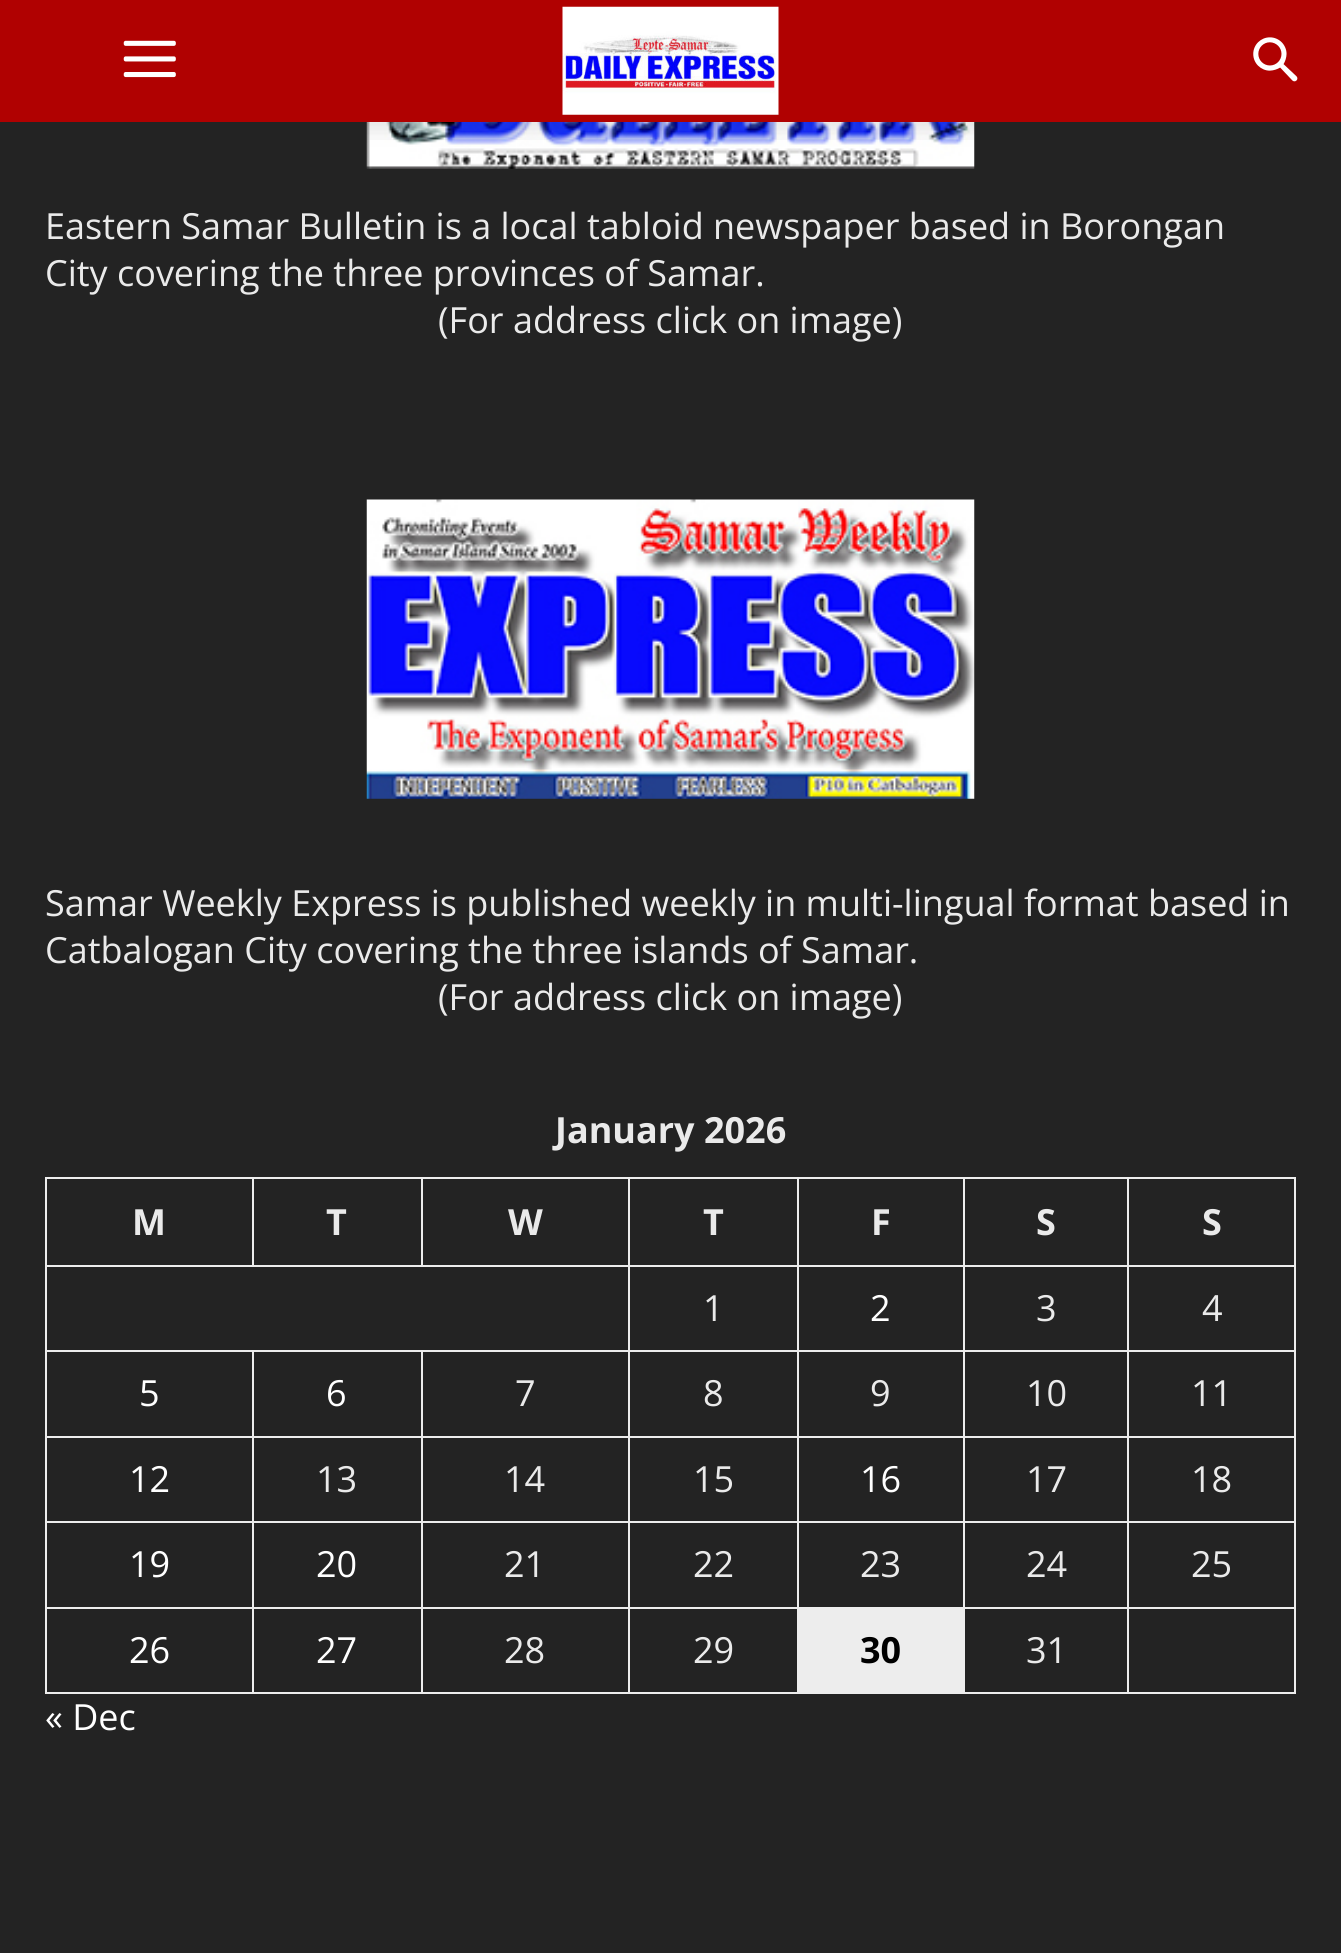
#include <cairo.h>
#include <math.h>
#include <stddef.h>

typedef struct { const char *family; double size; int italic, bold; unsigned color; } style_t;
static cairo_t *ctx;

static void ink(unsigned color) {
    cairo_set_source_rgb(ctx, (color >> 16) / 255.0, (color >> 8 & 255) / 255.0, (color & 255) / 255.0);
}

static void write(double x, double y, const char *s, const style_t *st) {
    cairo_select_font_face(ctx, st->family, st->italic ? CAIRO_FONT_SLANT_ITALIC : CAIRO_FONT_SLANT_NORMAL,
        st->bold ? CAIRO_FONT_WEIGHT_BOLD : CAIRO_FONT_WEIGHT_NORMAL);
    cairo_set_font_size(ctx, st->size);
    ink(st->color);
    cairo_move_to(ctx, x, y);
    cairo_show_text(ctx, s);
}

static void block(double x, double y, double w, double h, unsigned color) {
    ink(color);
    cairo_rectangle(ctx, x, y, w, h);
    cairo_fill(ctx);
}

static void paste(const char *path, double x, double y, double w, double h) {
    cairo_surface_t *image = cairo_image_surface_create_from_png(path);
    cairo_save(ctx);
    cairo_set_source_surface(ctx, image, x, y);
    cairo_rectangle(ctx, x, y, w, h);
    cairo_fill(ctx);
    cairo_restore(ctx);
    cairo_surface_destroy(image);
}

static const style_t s1 = {"Open Sans", 36, 0, 0, 0xeaeaea};
static const style_t s2 = {"Open Sans", 36, 0, 1, 0xeaeaea};
static const style_t s3 = {"Open Sans", 36, 0, 0, 0xffffff};
static const style_t s4 = {"Open Sans", 36, 0, 1, 0x000000};

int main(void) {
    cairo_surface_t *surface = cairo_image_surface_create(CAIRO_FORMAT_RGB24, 1341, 1953);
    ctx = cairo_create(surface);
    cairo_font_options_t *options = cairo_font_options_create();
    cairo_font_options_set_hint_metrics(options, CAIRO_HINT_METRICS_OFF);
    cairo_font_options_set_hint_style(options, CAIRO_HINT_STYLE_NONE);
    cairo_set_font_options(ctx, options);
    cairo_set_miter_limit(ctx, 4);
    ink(0x232323);
    cairo_paint(ctx);
    block(0, 0, 1341, 122, 0xb00101);
    paste("pic1.png", 123, 40, 53, 38);
    paste("pic2.png", 562, 6, 217, 109);
    paste("pic3.png", 1253, 37, 45, 45);
    paste("pic5.png", 366, 122, 609, 47);
    paste("pic4.png", 366, 122, 609, 18);
    write(45, 239, "Eastern Samar Bulletin is a local tabloid newspaper based in Borongan", &s1);
    write(45, 286, "City covering the three provinces of Samar.", &s1);
    write(438, 333, "(For address click on image)", &s1);
    paste("pic6.png", 366, 499, 609, 300);
    write(45, 916, "Samar Weekly Express is published weekly in multi-lingual format based in", &s1);
    write(45, 963, "Catbalogan City covering the three islands of Samar.", &s1);
    write(438, 1010, "(For address click on image)", &s1);
    write(555, 1143, "January 2026", &s2);
    block(1127, 1177, 169, 2, 0xededed);
    block(1127, 1265, 169, 2, 0xededed);
    block(1127, 1350, 169, 2, 0xededed);
    block(1127, 1436, 169, 2, 0xededed);
    block(1127, 1521, 169, 2, 0xededed);
    block(1127, 1607, 169, 2, 0xededed);
    block(1294, 1607, 2, 87, 0xededed);
    block(1127, 1692, 169, 2, 0xededed);
    block(1127, 1607, 2, 87, 0xededed);
    block(963, 1607, 167, 2, 0xededed);
    block(1127, 1521, 2, 88, 0xededed);
    block(963, 1521, 167, 2, 0xededed);
    block(1127, 1436, 2, 87, 0xededed);
    block(963, 1436, 167, 2, 0xededed);
    block(1127, 1350, 2, 88, 0xededed);
    block(963, 1350, 167, 2, 0xededed);
    block(1127, 1265, 2, 87, 0xededed);
    block(963, 1265, 167, 2, 0xededed);
    block(1127, 1177, 2, 90, 0xededed);
    block(963, 1177, 167, 2, 0xededed);
    block(963, 1692, 167, 2, 0xededed);
    block(963, 1607, 2, 87, 0xededed);
    block(797, 1607, 168, 2, 0xededed);
    block(963, 1521, 2, 88, 0xededed);
    block(797, 1521, 168, 2, 0xededed);
    block(963, 1436, 2, 87, 0xededed);
    block(797, 1436, 168, 2, 0xededed);
    block(963, 1350, 2, 88, 0xededed);
    block(797, 1350, 168, 2, 0xededed);
    block(963, 1265, 2, 87, 0xededed);
    block(797, 1265, 168, 2, 0xededed);
    block(963, 1177, 2, 90, 0xededed);
    block(797, 1177, 168, 2, 0xededed);
    block(797, 1692, 168, 2, 0xededed);
    block(797, 1607, 2, 87, 0xededed);
    block(628, 1607, 171, 2, 0xededed);
    block(797, 1521, 2, 88, 0xededed);
    block(628, 1521, 171, 2, 0xededed);
    block(797, 1436, 2, 87, 0xededed);
    block(628, 1436, 171, 2, 0xededed);
    block(797, 1350, 2, 88, 0xededed);
    block(628, 1350, 171, 2, 0xededed);
    block(797, 1265, 2, 87, 0xededed);
    block(628, 1265, 171, 2, 0xededed);
    block(797, 1177, 2, 90, 0xededed);
    block(628, 1177, 171, 2, 0xededed);
    block(628, 1692, 171, 2, 0xededed);
    block(628, 1607, 2, 87, 0xededed);
    block(421, 1607, 209, 2, 0xededed);
    block(628, 1521, 2, 88, 0xededed);
    block(421, 1521, 209, 2, 0xededed);
    block(628, 1436, 2, 87, 0xededed);
    block(421, 1436, 209, 2, 0xededed);
    block(628, 1350, 2, 88, 0xededed);
    block(421, 1350, 209, 2, 0xededed);
    block(628, 1265, 2, 87, 0xededed);
    block(45, 1265, 585, 2, 0xededed);
    block(628, 1177, 2, 90, 0xededed);
    block(421, 1177, 209, 2, 0xededed);
    block(421, 1177, 2, 90, 0xededed);
    block(252, 1177, 171, 2, 0xededed);
    block(252, 1177, 2, 90, 0xededed);
    block(45, 1177, 209, 2, 0xededed);
    block(421, 1692, 209, 2, 0xededed);
    block(421, 1607, 2, 87, 0xededed);
    block(252, 1607, 171, 2, 0xededed);
    block(421, 1521, 2, 88, 0xededed);
    block(252, 1521, 171, 2, 0xededed);
    block(421, 1436, 2, 87, 0xededed);
    block(252, 1436, 171, 2, 0xededed);
    block(421, 1350, 2, 88, 0xededed);
    block(252, 1350, 171, 2, 0xededed);
    block(252, 1692, 171, 2, 0xededed);
    block(252, 1607, 2, 87, 0xededed);
    block(45, 1607, 209, 2, 0xededed);
    block(252, 1521, 2, 88, 0xededed);
    block(45, 1521, 209, 2, 0xededed);
    block(252, 1436, 2, 87, 0xededed);
    block(45, 1436, 209, 2, 0xededed);
    block(252, 1350, 2, 88, 0xededed);
    block(45, 1350, 209, 2, 0xededed);
    block(45, 1692, 209, 2, 0xededed);
    block(45, 1607, 2, 87, 0xededed);
    block(45, 1521, 2, 88, 0xededed);
    block(45, 1436, 2, 87, 0xededed);
    block(45, 1350, 2, 88, 0xededed);
    block(45, 1265, 2, 87, 0xededed);
    block(45, 1177, 2, 90, 0xededed);
    write(132, 1235, "M", &s2);
    write(326, 1235, "T", &s2);
    write(508, 1235, "W", &s2);
    write(703, 1235, "T", &s2);
    write(871, 1235, "F", &s2);
    write(1036, 1235, "S", &s2);
    block(1294, 1521, 2, 88, 0xededed);
    block(1294, 1436, 2, 87, 0xededed);
    block(1294, 1350, 2, 88, 0xededed);
    block(1294, 1265, 2, 87, 0xededed);
    block(1294, 1177, 2, 90, 0xededed);
    write(1202, 1235, "S", &s2);
    write(703, 1321, "1", &s1);
    write(870, 1321, "2", &s3);
    write(1036, 1321, "3", &s1);
    write(1202, 1321, "4", &s1);
    write(139, 1406, "5", &s3);
    write(326, 1406, "6", &s3);
    write(515, 1406, "7", &s1);
    write(703, 1406, "8", &s1);
    write(870, 1406, "9", &s1);
    write(1026, 1406, "10", &s1);
    write(1191, 1406, "11", &s1);
    write(129, 1492, "12", &s3);
    write(316, 1492, "13", &s1);
    write(504, 1492, "14", &s1);
    write(693, 1492, "15", &s1);
    write(860, 1492, "16", &s3);
    write(1026, 1492, "17", &s1);
    write(1191, 1492, "18", &s1);
    write(129, 1577, "19", &s3);
    write(316, 1577, "20", &s3);
    write(504, 1577, "21", &s1);
    write(693, 1577, "22", &s1);
    write(860, 1577, "23", &s1);
    write(1026, 1577, "24", &s1);
    write(1191, 1577, "25", &s1);
    write(129, 1663, "26", &s3);
    write(316, 1663, "27", &s3);
    write(504, 1663, "28", &s1);
    write(693, 1663, "29", &s1);
    block(799, 1609, 164, 83, 0xededed);
    write(860, 1663, "30", &s4);
    write(1026, 1663, "31", &s1);
    write(45, 1730, "« Dec", &s3);
    cairo_surface_write_to_png(surface, "screenshot.png");
    cairo_font_options_destroy(options);
    cairo_destroy(ctx);
    cairo_surface_destroy(surface);
    return 0;
}
